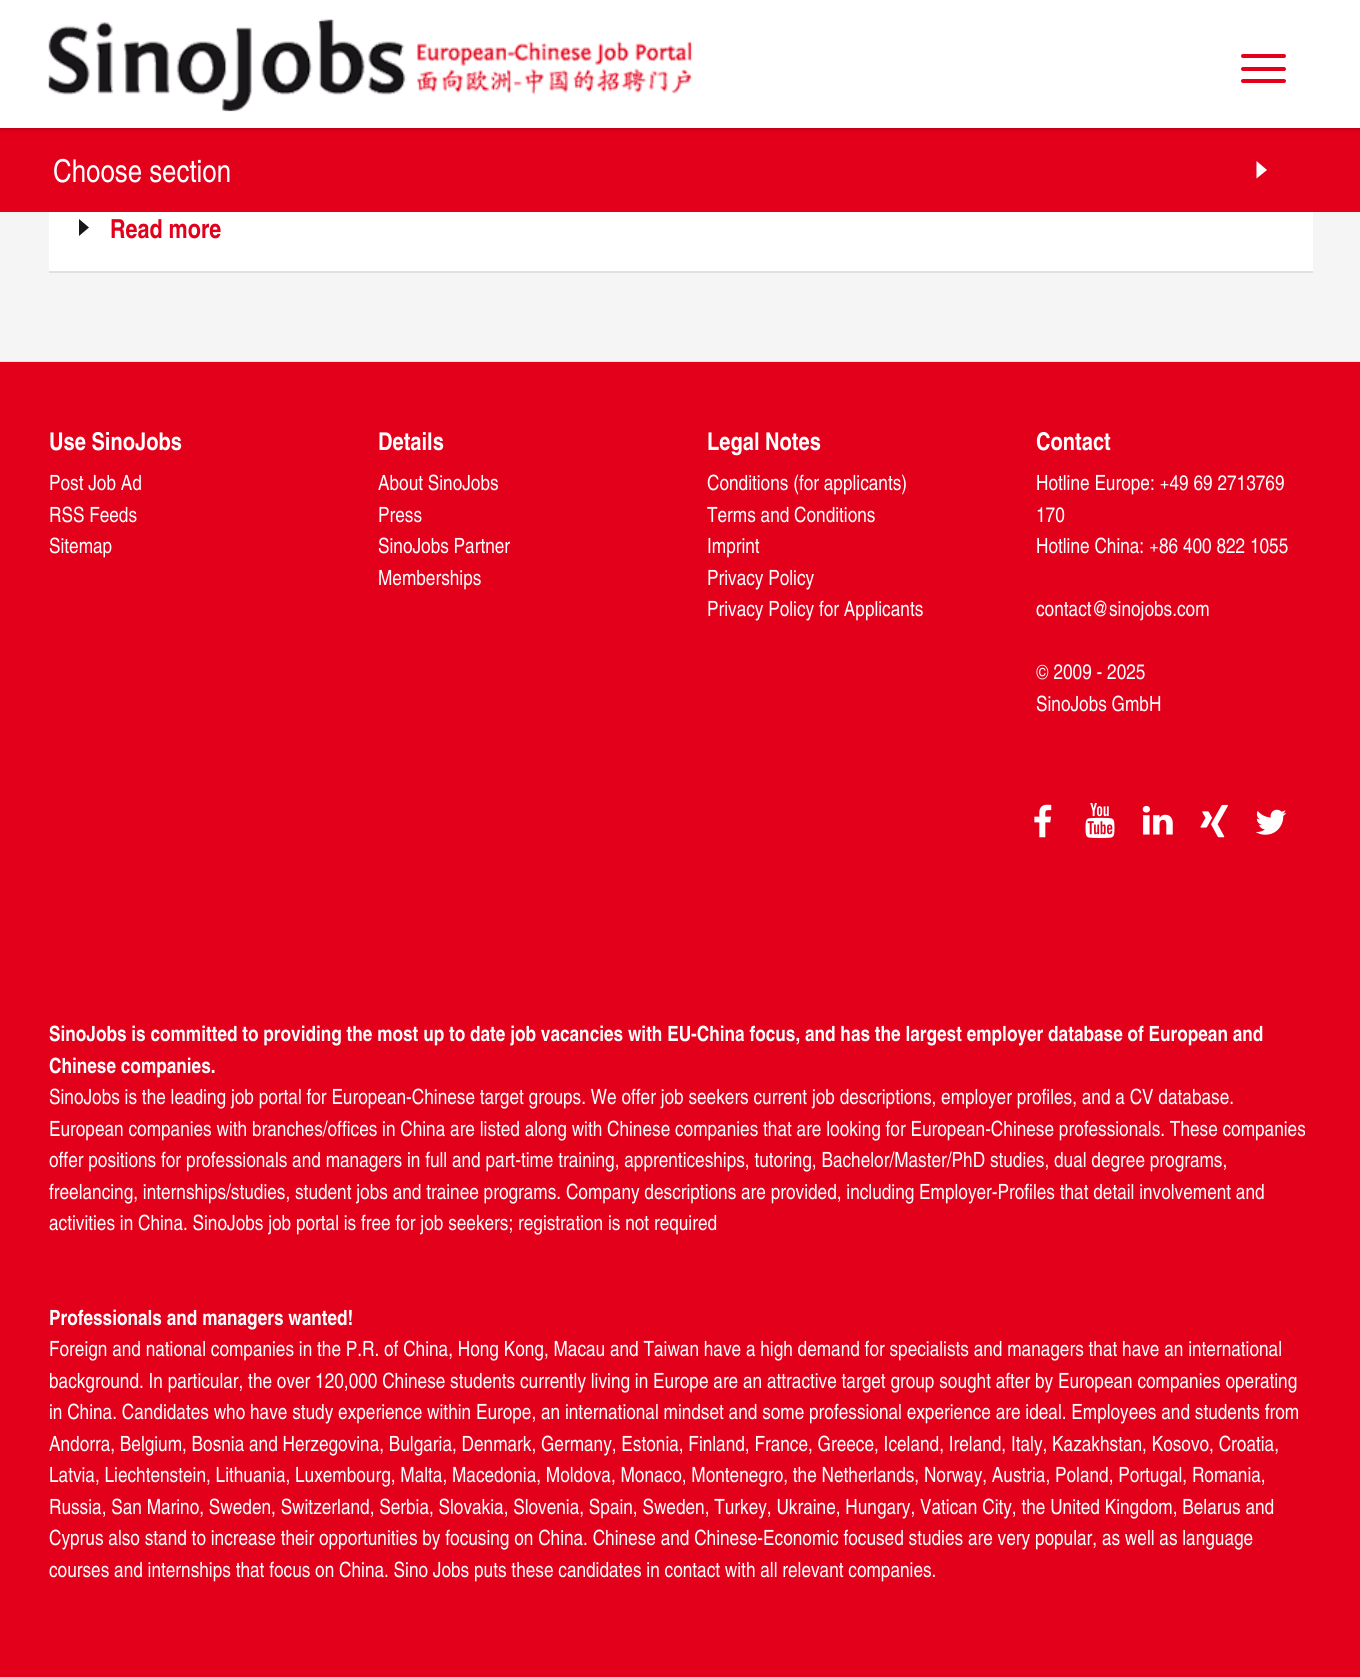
#include <cairo.h>
#include <math.h>
#include <stddef.h>

typedef struct { const char *family; double size; int italic, bold; unsigned color; } style_t;
static cairo_t *ctx;

static void ink(unsigned color) {
    cairo_set_source_rgb(ctx, (color >> 16) / 255.0, (color >> 8 & 255) / 255.0, (color & 255) / 255.0);
}

static void write(double x, double y, const char *s, const style_t *st) {
    cairo_select_font_face(ctx, st->family, st->italic ? CAIRO_FONT_SLANT_ITALIC : CAIRO_FONT_SLANT_NORMAL,
        st->bold ? CAIRO_FONT_WEIGHT_BOLD : CAIRO_FONT_WEIGHT_NORMAL);
    cairo_set_font_size(ctx, st->size);
    ink(st->color);
    cairo_move_to(ctx, x, y);
    cairo_show_text(ctx, s);
}

static void block(double x, double y, double w, double h, unsigned color) {
    ink(color);
    cairo_rectangle(ctx, x, y, w, h);
    cairo_fill(ctx);
}

static void round_path(double x, double y, double w, double h, double r) {
    cairo_new_sub_path(ctx);
    cairo_arc(ctx, x + w - r, y + h - r, r, 0, M_PI / 2);
    cairo_arc(ctx, x + r, y + h - r, r, M_PI / 2, M_PI);
    cairo_arc(ctx, x + r, y + r, r, M_PI, 1.5 * M_PI);
    cairo_arc(ctx, x + w - r, y + r, r, 1.5 * M_PI, 2 * M_PI);
    cairo_close_path(ctx);
}

static void blur_box(double x, double y, double w, double h, double r, double blur, double alpha) {
    cairo_push_group_with_content(ctx, CAIRO_CONTENT_ALPHA);
    cairo_set_operator(ctx, CAIRO_OPERATOR_SOURCE);
    for (int i = 15; i >= -15 && fmin(w, h) + blur * i / 3 > 0; i -= 2) {
        double e = blur * i / 6;
        cairo_set_source_rgba(ctx, 0, 0, 0, alpha * erfc((i - 1) / 8.5) / 2);
        round_path(x - e, y - e, w + 2 * e, h + 2 * e, fmax(0, fmin(r + e + blur * .6, fmin(w, h) / 2 + e)));
        cairo_fill(ctx);
    }
    cairo_pattern_t *soft = cairo_pop_group(ctx);
    cairo_mask(ctx, soft);
    cairo_pattern_destroy(soft);
}

static void paste(const char *path, double x, double y, double w, double h) {
    cairo_surface_t *image = cairo_image_surface_create_from_png(path);
    cairo_save(ctx);
    cairo_set_source_surface(ctx, image, x, y);
    cairo_rectangle(ctx, x, y, w, h);
    cairo_fill(ctx);
    cairo_restore(ctx);
    cairo_surface_destroy(image);
}

static const style_t s1 = {"TeX Gyre Heros Cn", 31.5, 0, 0, 0xffffff};
static const style_t s2 = {"TeX Gyre Heros Cn", 26.25, 0, 1, 0xe2001a};
static const style_t s3 = {"TeX Gyre Heros Cn", 24.5, 0, 1, 0xffffff};
static const style_t s4 = {"TeX Gyre Heros Cn", 21, 0, 0, 0xffffff};
static const style_t s5 = {"TeX Gyre Heros Cn", 21, 0, 1, 0xffffff};

int main(void) {
    cairo_surface_t *surface = cairo_image_surface_create(CAIRO_FORMAT_RGB24, 1360, 1677);
    ctx = cairo_create(surface);
    cairo_font_options_t *options = cairo_font_options_create();
    cairo_font_options_set_hint_metrics(options, CAIRO_HINT_METRICS_OFF);
    cairo_font_options_set_hint_style(options, CAIRO_HINT_STYLE_NONE);
    cairo_set_font_options(ctx, options);
    cairo_set_miter_limit(ctx, 4);
    ink(0xf5f5f5);
    cairo_paint(ctx);
    block(0, 128, 1360, 84, 0xe2001a);
    ink(0x000000);
    blur_box(0, 0, 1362, 128, 0, 2.5, 0.3);
    block(0, 0, 1360, 128, 0xffffff);
    paste("pic1.png", 48, 19, 645, 93);
    ink(0xe2001a);
    round_path(1241, 54, 45, 4, 2);
    cairo_fill(ctx);
    round_path(1241, 67, 45, 4, 2);
    cairo_fill(ctx);
    round_path(1241, 79, 45, 4, 2);
    cairo_fill(ctx);
    block(0, 361, 1360, 1, 0xe1e1e1);
    write(53, 182, "Choose section", &s1);
    cairo_new_path(ctx);
    cairo_move_to(ctx, 1256.5, 178.5);
    cairo_line_to(ctx, 1256.5, 161);
    cairo_line_to(ctx, 1267, 170);
    cairo_close_path(ctx);
    cairo_fill(ctx);
    block(49, 212, 1264, 59, 0xffffff);
    block(49, 271, 1264, 2, 0xe1e1e1);
    ink(0x1a171b);
    cairo_new_path(ctx);
    cairo_move_to(ctx, 79, 236);
    cairo_line_to(ctx, 79, 219);
    cairo_line_to(ctx, 89, 227.5);
    cairo_close_path(ctx);
    cairo_fill(ctx);
    write(110, 238, "Read more", &s2);
    block(0, 362, 1360, 1315, 0xe2001a);
    write(49, 450, "Use SinoJobs", &s3);
    write(49, 490, "Post Job Ad", &s4);
    write(49, 522, "RSS Feeds", &s4);
    write(49, 553, "Sitemap", &s4);
    write(378, 450, "Details", &s3);
    write(378, 490, "About SinoJobs", &s4);
    write(378, 522, "Press", &s4);
    write(378, 553, "SinoJobs Partner", &s4);
    write(378, 585, "Memberships", &s4);
    write(707, 450, "Legal Notes", &s3);
    write(707, 490, "Conditions (for applicants)", &s4);
    write(707, 522, "Terms and Conditions", &s4);
    write(707, 553, "Imprint", &s4);
    write(707, 585, "Privacy Policy", &s4);
    write(707, 616, "Privacy Policy for Applicants", &s4);
    write(1036, 450, "Contact", &s3);
    write(1036, 490, "Hotline Europe: +49 69 2713769", &s4);
    write(1036, 522, "170", &s4);
    write(1036, 553, "Hotline China: +86 400 822 1055", &s4);
    write(1036, 616, "contact@sinojobs.com", &s4);
    write(1036, 679, "© 2009 - 2025", &s4);
    write(1036, 711, "SinoJobs GmbH", &s4);
    paste("pic2.png", 1034, 804, 18, 34);
    paste("pic3.png", 1085, 803, 30, 35);
    paste("pic4.png", 1142, 805, 31, 30);
    paste("pic5.png", 1200, 804, 28, 34);
    paste("pic6.png", 1256, 809, 31, 26);
    write(49, 1041, "SinoJobs is committed to providing the most up to date job vacancies with EU-China focus, and has the largest employer database of European and", &s5);
    write(49, 1073, "Chinese companies.", &s5);
    write(49, 1104, "SinoJobs is the leading job portal for European-Chinese target groups. We offer job seekers current job descriptions, employer profiles, and a CV database.", &s4);
    write(49, 1136, "European companies with branches/offices in China are listed along with Chinese companies that are looking for European-Chinese professionals. These companies", &s4);
    write(49, 1167, "offer positions for professionals and managers in full and part-time training, apprenticeships, tutoring, Bachelor/Master/PhD studies, dual degree programs,", &s4);
    write(49, 1199, "freelancing, internships/studies, student jobs and trainee programs. Company descriptions are provided, including Employer-Profiles that detail involvement and", &s4);
    write(49, 1230, "activities in China. SinoJobs job portal is free for job seekers; registration is not required", &s4);
    write(49, 1325, "Professionals and managers wanted!", &s5);
    write(49, 1356, "Foreign and national companies in the P.R. of China, Hong Kong, Macau and Taiwan have a high demand for specialists and managers that have an international", &s4);
    write(49, 1388, "background. In particular, the over 120,000 Chinese students currently living in Europe are an attractive target group sought after by European companies operating", &s4);
    write(49, 1419, "in China. Candidates who have study experience within Europe, an international mindset and some professional experience are ideal. Employees and students from", &s4);
    write(49, 1451, "Andorra, Belgium, Bosnia and Herzegovina, Bulgaria, Denmark, Germany, Estonia, Finland, France, Greece, Iceland, Ireland, Italy, Kazakhstan, Kosovo, Croatia,", &s4);
    write(49, 1482, "Latvia, Liechtenstein, Lithuania, Luxembourg, Malta, Macedonia, Moldova, Monaco, Montenegro, the Netherlands, Norway, Austria, Poland, Portugal, Romania,", &s4);
    write(49, 1514, "Russia, San Marino, Sweden, Switzerland, Serbia, Slovakia, Slovenia, Spain, Sweden, Turkey, Ukraine, Hungary, Vatican City, the United Kingdom, Belarus and", &s4);
    write(49, 1545, "Cyprus also stand to increase their opportunities by focusing on China. Chinese and Chinese-Economic focused studies are very popular, as well as language", &s4);
    write(49, 1577, "courses and internships that focus on China. Sino Jobs puts these candidates in contact with all relevant companies.", &s4);
    cairo_surface_write_to_png(surface, "screenshot.png");
    cairo_font_options_destroy(options);
    cairo_destroy(ctx);
    cairo_surface_destroy(surface);
    return 0;
}
